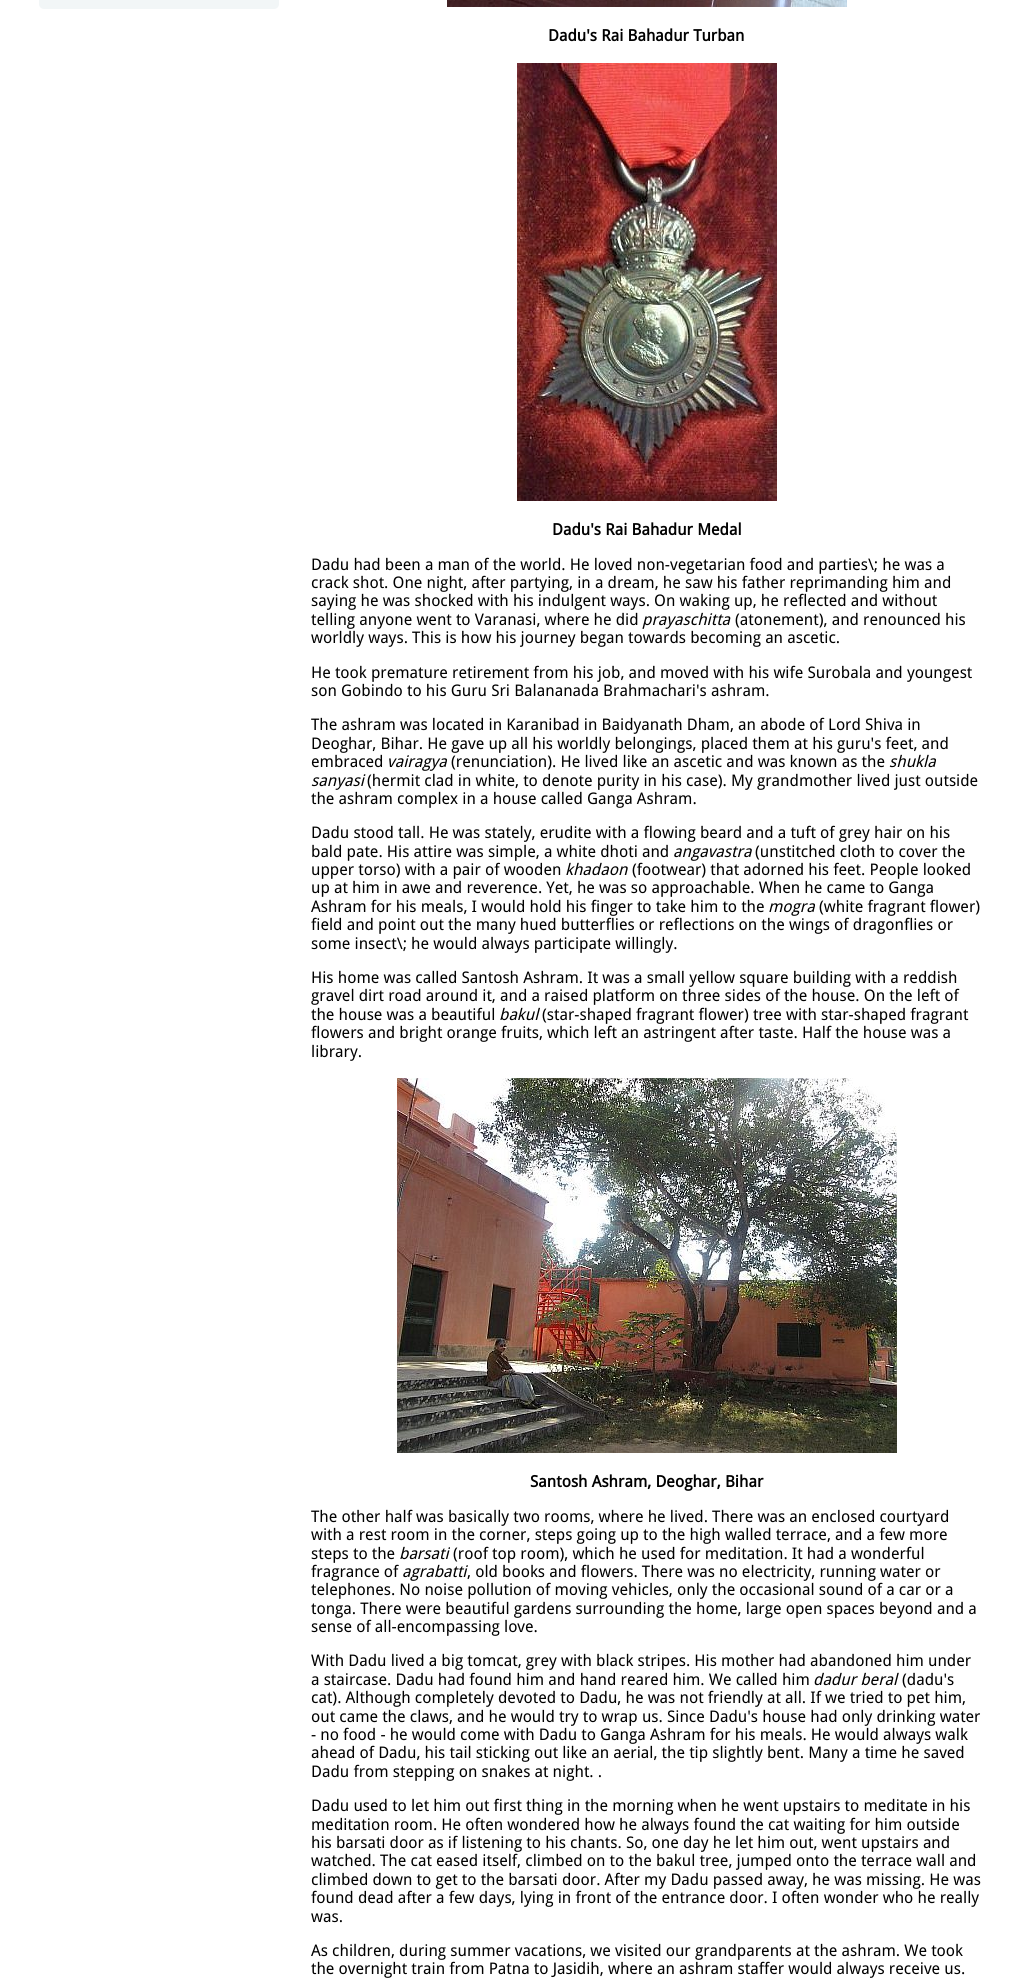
#include <cairo.h>
#include <math.h>
#include <stddef.h>

typedef struct { const char *family; double size; int italic, bold; unsigned color; } style_t;
static cairo_t *ctx;

static void ink(unsigned color) {
    cairo_set_source_rgb(ctx, (color >> 16) / 255.0, (color >> 8 & 255) / 255.0, (color & 255) / 255.0);
}

static void write(double x, double y, const char *s, const style_t *st) {
    cairo_select_font_face(ctx, st->family, st->italic ? CAIRO_FONT_SLANT_ITALIC : CAIRO_FONT_SLANT_NORMAL,
        st->bold ? CAIRO_FONT_WEIGHT_BOLD : CAIRO_FONT_WEIGHT_NORMAL);
    cairo_set_font_size(ctx, st->size);
    ink(st->color);
    cairo_move_to(ctx, x, y);
    cairo_show_text(ctx, s);
}

static void round_path(double x, double y, double w, double h, double r) {
    cairo_new_sub_path(ctx);
    cairo_arc(ctx, x + w - r, y + h - r, r, 0, M_PI / 2);
    cairo_arc(ctx, x + r, y + h - r, r, M_PI / 2, M_PI);
    cairo_arc(ctx, x + r, y + r, r, M_PI, 1.5 * M_PI);
    cairo_arc(ctx, x + w - r, y + r, r, 1.5 * M_PI, 2 * M_PI);
    cairo_close_path(ctx);
}

static void paste(const char *path, double x, double y, double w, double h) {
    cairo_surface_t *image = cairo_image_surface_create_from_png(path);
    cairo_save(ctx);
    cairo_set_source_surface(ctx, image, x, y);
    cairo_rectangle(ctx, x, y, w, h);
    cairo_fill(ctx);
    cairo_restore(ctx);
    cairo_surface_destroy(image);
}

static const style_t s1 = {"Droid Sans", 16, 0, 1, 0x000000};
static const style_t s2 = {"Droid Sans", 16, 0, 0, 0x000000};
static const style_t s3 = {"Droid Sans", 16, 1, 0, 0x000000};

int main(void) {
    cairo_surface_t *surface = cairo_image_surface_create(CAIRO_FORMAT_RGB24, 1021, 1988);
    ctx = cairo_create(surface);
    cairo_font_options_t *options = cairo_font_options_create();
    cairo_font_options_set_hint_metrics(options, CAIRO_HINT_METRICS_OFF);
    cairo_font_options_set_hint_style(options, CAIRO_HINT_STYLE_NONE);
    cairo_set_font_options(ctx, options);
    cairo_set_miter_limit(ctx, 4);
    ink(0xffffff);
    cairo_paint(ctx);
    ink(0xf2f6f7);
    round_path(39, -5, 240, 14, 5);
    cairo_fill(ctx);
    paste("pic1.png", 447, 0, 400, 7);
    write(548, 41, "Dadu's Rai Bahadur Turban", &s1);
    paste("pic2.png", 517, 63, 260, 438);
    write(552, 535, "Dadu's Rai Bahadur Medal", &s1);
    write(311, 570, "Dadu had been a man of the world. He loved non-vegetarian food and parties\\; he was a", &s2);
    write(311, 588, "crack shot. One night, after partying, in a dream, he saw his father reprimanding him and", &s2);
    write(311, 606, "saying he was shocked with his indulgent ways. On waking up, he reflected and without", &s2);
    write(311, 625, "telling anyone went to Varanasi, where he did", &s2);
    write(642, 625, "prayaschitta", &s3);
    write(735, 625, "(atonement), and renounced his", &s2);
    write(311, 643, "worldly ways. This is how his journey began towards becoming an ascetic.", &s2);
    write(311, 678, "He took premature retirement from his job, and moved with his wife Surobala and youngest", &s2);
    write(311, 696, "son Gobindo to his Guru Sri Balananada Brahmachari's ashram.", &s2);
    write(311, 730, "The ashram was located in Karanibad in Baidyanath Dham, an abode of Lord Shiva in", &s2);
    write(311, 749, "Deoghar, Bihar. He gave up all his worldly belongings, placed them at his guru's feet, and", &s2);
    write(311, 767, "embraced", &s2);
    write(387, 767, "vairagya", &s3);
    write(451, 767, "(renunciation). He lived like an ascetic and was known as the", &s2);
    write(889, 767, "shukla", &s3);
    write(311, 786, "sanyasi", &s3);
    write(367, 786, "(hermit clad in white, to denote purity in his case). My grandmother lived just outside", &s2);
    write(311, 804, "the ashram complex in a house called Ganga Ashram.", &s2);
    write(311, 838, "Dadu stood tall. He was stately, erudite with a flowing beard and a tuft of grey hair on his", &s2);
    write(311, 857, "bald pate. His attire was simple, a white dhoti and", &s2);
    write(673, 857, "angavastra", &s3);
    write(755, 857, "(unstitched cloth to cover the", &s2);
    write(311, 875, "upper torso) with a pair of wooden", &s2);
    write(565, 875, "khadaon", &s3);
    write(632, 875, "(footwear) that adorned his feet. People looked", &s2);
    write(311, 893, "up at him in awe and reverence. Yet, he was so approachable. When he came to Ganga", &s2);
    write(311, 912, "Ashram for his meals, I would hold his finger to take him to the", &s2);
    write(768, 912, "mogra", &s3);
    write(819, 912, "(white fragrant flower)", &s2);
    write(311, 930, "field and point out the many hued butterflies or reflections on the wings of dragonflies or", &s2);
    write(311, 949, "some insect\\; he would always participate willingly.", &s2);
    write(311, 983, "His home was called Santosh Ashram. It was a small yellow square building with a reddish", &s2);
    write(311, 1001, "gravel dirt road around it, and a raised platform on three sides of the house. On the left of", &s2);
    write(311, 1020, "the house was a beautiful", &s2);
    write(499, 1020, "bakul", &s3);
    write(542, 1020, "(star-shaped fragrant flower) tree with star-shaped fragrant", &s2);
    write(311, 1038, "flowers and bright orange fruits, which left an astringent after taste. Half the house was a", &s2);
    write(311, 1057, "library.", &s2);
    paste("pic3.png", 397, 1078, 500, 375);
    write(530, 1487, "Santosh Ashram, Deoghar, Bihar", &s1);
    write(311, 1522, "The other half was basically two rooms, where he lived. There was an enclosed courtyard", &s2);
    write(311, 1540, "with a rest room in the corner, steps going up to the high walled terrace, and a few more", &s2);
    write(311, 1559, "steps to the", &s2);
    write(399, 1559, "barsati", &s3);
    write(453, 1559, "(roof top room), which he used for meditation. It had a wonderful", &s2);
    write(311, 1577, "fragrance of", &s2);
    write(402, 1577, "agrabatti", &s3);
    write(467, 1577, ", old books and flowers. There was no electricity, running water or", &s2);
    write(311, 1595, "telephones. No noise pollution of moving vehicles, only the occasional sound of a car or a", &s2);
    write(311, 1614, "tonga. There were beautiful gardens surrounding the home, large open spaces beyond and a", &s2);
    write(311, 1632, "sense of all-encompassing love.", &s2);
    write(311, 1666, "With Dadu lived a big tomcat, grey with black stripes. His mother had abandoned him under", &s2);
    write(311, 1685, "a staircase. Dadu had found him and hand reared him. We called him", &s2);
    write(813, 1685, "dadur beral", &s3);
    write(902, 1685, "(dadu's", &s2);
    write(311, 1703, "cat). Although completely devoted to Dadu, he was not friendly at all. If we tried to pet him,", &s2);
    write(311, 1722, "out came the claws, and he would try to wrap us. Since Dadu's house had only drinking water", &s2);
    write(311, 1740, "- no food - he would come with Dadu to Ganga Ashram for his meals. He would always walk", &s2);
    write(311, 1758, "ahead of Dadu, his tail sticking out like an aerial, the tip slightly bent. Many a time he saved", &s2);
    write(311, 1777, "Dadu from stepping on snakes at night. .", &s2);
    write(311, 1811, "Dadu used to let him out first thing in the morning when he went upstairs to meditate in his", &s2);
    write(311, 1830, "meditation room. He often wondered how he always found the cat waiting for him outside", &s2);
    write(311, 1848, "his barsati door as if listening to his chants. So, one day he let him out, went upstairs and", &s2);
    write(311, 1866, "watched. The cat eased itself, climbed on to the bakul tree, jumped onto the terrace wall and", &s2);
    write(311, 1885, "climbed down to get to the barsati door. After my Dadu passed away, he was missing. He was", &s2);
    write(311, 1903, "found dead after a few days, lying in front of the entrance door. I often wonder who he really", &s2);
    write(311, 1922, "was.", &s2);
    write(311, 1956, "As children, during summer vacations, we visited our grandparents at the ashram. We took", &s2);
    write(311, 1974, "the overnight train from Patna to Jasidih, where an ashram staffer would always receive us.", &s2);
    cairo_surface_write_to_png(surface, "screenshot.png");
    cairo_font_options_destroy(options);
    cairo_destroy(ctx);
    cairo_surface_destroy(surface);
    return 0;
}
